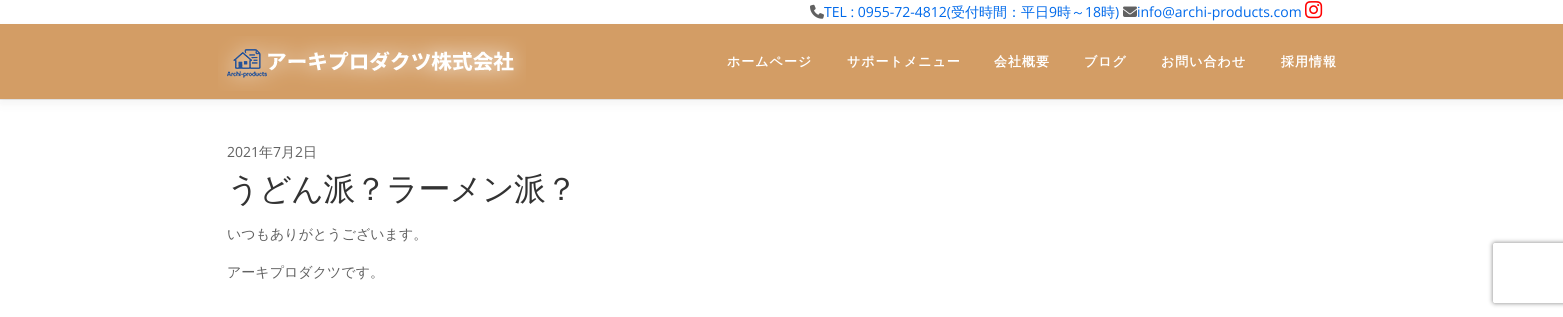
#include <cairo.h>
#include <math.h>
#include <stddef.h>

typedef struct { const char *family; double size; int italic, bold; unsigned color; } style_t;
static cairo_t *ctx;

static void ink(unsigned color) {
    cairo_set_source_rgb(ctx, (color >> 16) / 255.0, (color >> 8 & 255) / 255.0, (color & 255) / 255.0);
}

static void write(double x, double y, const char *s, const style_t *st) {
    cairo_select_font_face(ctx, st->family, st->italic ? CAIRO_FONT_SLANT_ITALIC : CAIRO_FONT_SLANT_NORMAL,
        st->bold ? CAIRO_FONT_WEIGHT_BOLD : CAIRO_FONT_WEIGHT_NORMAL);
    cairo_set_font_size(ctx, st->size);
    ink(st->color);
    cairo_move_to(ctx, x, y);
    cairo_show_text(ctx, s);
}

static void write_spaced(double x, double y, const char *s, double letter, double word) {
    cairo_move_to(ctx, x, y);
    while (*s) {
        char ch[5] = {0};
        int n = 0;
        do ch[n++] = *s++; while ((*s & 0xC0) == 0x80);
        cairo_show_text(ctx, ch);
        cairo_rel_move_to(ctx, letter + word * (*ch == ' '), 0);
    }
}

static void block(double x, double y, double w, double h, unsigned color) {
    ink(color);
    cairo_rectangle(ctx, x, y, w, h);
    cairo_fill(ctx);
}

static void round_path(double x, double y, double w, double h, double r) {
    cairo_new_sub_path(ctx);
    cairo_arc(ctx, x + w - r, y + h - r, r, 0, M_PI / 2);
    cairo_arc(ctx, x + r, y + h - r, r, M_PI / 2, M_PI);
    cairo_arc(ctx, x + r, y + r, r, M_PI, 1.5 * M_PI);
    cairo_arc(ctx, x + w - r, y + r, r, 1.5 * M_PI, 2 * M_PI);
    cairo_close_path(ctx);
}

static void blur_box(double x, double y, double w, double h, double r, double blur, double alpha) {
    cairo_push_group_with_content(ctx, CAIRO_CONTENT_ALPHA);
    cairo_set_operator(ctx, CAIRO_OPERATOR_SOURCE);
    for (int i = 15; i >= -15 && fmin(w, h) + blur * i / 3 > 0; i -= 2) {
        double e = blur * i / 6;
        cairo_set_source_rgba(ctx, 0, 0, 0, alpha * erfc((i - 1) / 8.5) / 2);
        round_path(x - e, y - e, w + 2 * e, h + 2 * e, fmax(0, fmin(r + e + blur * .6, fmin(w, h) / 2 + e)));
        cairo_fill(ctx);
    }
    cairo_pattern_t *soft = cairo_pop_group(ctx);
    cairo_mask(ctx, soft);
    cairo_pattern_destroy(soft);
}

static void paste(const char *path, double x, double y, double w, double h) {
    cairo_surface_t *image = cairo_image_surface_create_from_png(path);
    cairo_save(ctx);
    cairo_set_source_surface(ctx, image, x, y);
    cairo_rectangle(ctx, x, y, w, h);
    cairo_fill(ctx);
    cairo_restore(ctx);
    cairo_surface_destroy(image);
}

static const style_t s1 = {"Open Sans", 14, 0, 0, 0x0069ea};
static const style_t s2 = {"WenQuanYi Zen Hei Medium", 14, 0, 0, 0x0069ea};
static const style_t s3 = {"Open Sans", 14, 0, 0, 0x616161};
static const style_t s4 = {"WenQuanYi Zen Hei Medium", 14, 0, 0, 0x616161};

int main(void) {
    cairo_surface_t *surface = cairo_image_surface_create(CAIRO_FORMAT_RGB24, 1563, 317);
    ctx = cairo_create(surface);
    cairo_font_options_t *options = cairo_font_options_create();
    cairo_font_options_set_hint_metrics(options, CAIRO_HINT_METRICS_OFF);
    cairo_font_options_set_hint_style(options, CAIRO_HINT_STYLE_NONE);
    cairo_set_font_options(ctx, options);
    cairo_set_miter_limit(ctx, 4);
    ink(0xffffff);
    cairo_paint(ctx);
    paste("pic1.png", 810, 4, 14, 15);
    write(824, 17, "TEL : 0955-72-4812(", &s1);
    write(951, 17, "受付時間：平日", &s2);
    write(1049, 17, "9", &s1);
    write(1057, 17, "時～", &s2);
    write(1085, 17, "18", &s1);
    write(1101, 17, "時", &s2);
    write(1115, 17, ")", &s1);
    paste("pic2.png", 1123, 6, 14, 11);
    write(1137, 17, "info@archi-products.com", &s1);
    paste("pic3.png", 1305, 1, 18, 18);
    block(0, 99, 1563, 1, 0xe9e9e9);
    ink(0x323232);
    blur_box(0, 29, 1563, 75, 0, 5, 0.06);
    block(0, 24, 1563, 75, 0xd39d65);
    paste("pic4.png", 218, 36, 308, 55);
    cairo_select_font_face(ctx, "WenQuanYi Zen Hei", CAIRO_FONT_SLANT_NORMAL, CAIRO_FONT_WEIGHT_BOLD);
    cairo_set_font_size(ctx, 13);
    ink(0xffffff);
    write_spaced(727, 66, "ホームページ", 1, 0);
    write_spaced(847, 66, "サポートメニュー", 1, 0);
    write_spaced(994, 66, "会社概要", 1, 0);
    write_spaced(1084, 66, "ブログ", 1, 0);
    write_spaced(1161, 66, "お問い合わせ", 1, 0);
    write_spaced(1281, 66, "採用情報", 1, 0);
    write(227, 157, "2021", &s3);
    write(259, 157, "年", &s4);
    write(273, 157, "7", &s3);
    write(281, 157, "月", &s4);
    write(295, 157, "2", &s3);
    write(303, 157, "日", &s4);
    cairo_set_font_size(ctx, 32);
    ink(0x333333);
    write_spaced(227, 200, "うどん派？ラーメン派？", -0.6, 0);
    write(227, 239, "いつもありがとうございます。", &s4);
    write(227, 277, "アーキプロダクツです。", &s4);
    cairo_save(ctx);
    cairo_set_fill_rule(ctx, CAIRO_FILL_RULE_EVEN_ODD);
    cairo_new_path(ctx);
    cairo_move_to(ctx, 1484, 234);
    cairo_line_to(ctx, 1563, 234);
    cairo_line_to(ctx, 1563, 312);
    cairo_line_to(ctx, 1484, 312);
    cairo_close_path(ctx);
    cairo_move_to(ctx, 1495, 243);
    cairo_line_to(ctx, 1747, 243);
    cairo_curve_to(ctx, 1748, 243, 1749, 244, 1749, 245);
    cairo_line_to(ctx, 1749, 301);
    cairo_curve_to(ctx, 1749, 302, 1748, 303, 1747, 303);
    cairo_line_to(ctx, 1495, 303);
    cairo_curve_to(ctx, 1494, 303, 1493, 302, 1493, 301);
    cairo_line_to(ctx, 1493, 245);
    cairo_curve_to(ctx, 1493, 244, 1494, 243, 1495, 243);
    cairo_close_path(ctx);
    cairo_clip(ctx);
    ink(0x808080);
    blur_box(1493, 243, 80, 60, 2, 2.5, 1);
    cairo_restore(ctx);
    cairo_surface_write_to_png(surface, "screenshot.png");
    cairo_font_options_destroy(options);
    cairo_destroy(ctx);
    cairo_surface_destroy(surface);
    return 0;
}
